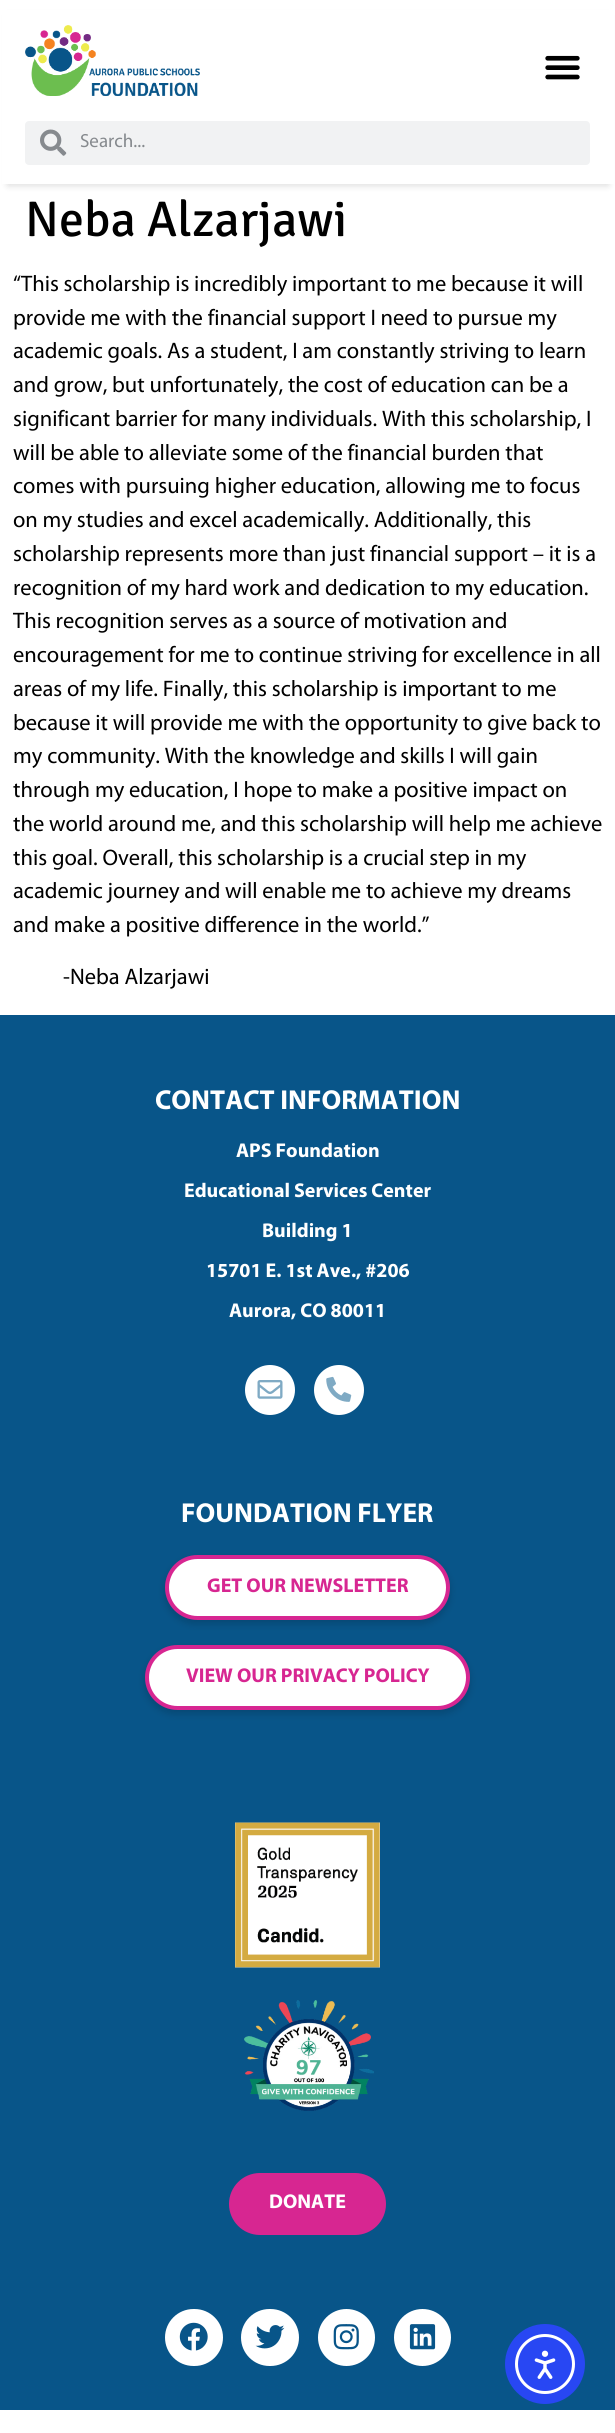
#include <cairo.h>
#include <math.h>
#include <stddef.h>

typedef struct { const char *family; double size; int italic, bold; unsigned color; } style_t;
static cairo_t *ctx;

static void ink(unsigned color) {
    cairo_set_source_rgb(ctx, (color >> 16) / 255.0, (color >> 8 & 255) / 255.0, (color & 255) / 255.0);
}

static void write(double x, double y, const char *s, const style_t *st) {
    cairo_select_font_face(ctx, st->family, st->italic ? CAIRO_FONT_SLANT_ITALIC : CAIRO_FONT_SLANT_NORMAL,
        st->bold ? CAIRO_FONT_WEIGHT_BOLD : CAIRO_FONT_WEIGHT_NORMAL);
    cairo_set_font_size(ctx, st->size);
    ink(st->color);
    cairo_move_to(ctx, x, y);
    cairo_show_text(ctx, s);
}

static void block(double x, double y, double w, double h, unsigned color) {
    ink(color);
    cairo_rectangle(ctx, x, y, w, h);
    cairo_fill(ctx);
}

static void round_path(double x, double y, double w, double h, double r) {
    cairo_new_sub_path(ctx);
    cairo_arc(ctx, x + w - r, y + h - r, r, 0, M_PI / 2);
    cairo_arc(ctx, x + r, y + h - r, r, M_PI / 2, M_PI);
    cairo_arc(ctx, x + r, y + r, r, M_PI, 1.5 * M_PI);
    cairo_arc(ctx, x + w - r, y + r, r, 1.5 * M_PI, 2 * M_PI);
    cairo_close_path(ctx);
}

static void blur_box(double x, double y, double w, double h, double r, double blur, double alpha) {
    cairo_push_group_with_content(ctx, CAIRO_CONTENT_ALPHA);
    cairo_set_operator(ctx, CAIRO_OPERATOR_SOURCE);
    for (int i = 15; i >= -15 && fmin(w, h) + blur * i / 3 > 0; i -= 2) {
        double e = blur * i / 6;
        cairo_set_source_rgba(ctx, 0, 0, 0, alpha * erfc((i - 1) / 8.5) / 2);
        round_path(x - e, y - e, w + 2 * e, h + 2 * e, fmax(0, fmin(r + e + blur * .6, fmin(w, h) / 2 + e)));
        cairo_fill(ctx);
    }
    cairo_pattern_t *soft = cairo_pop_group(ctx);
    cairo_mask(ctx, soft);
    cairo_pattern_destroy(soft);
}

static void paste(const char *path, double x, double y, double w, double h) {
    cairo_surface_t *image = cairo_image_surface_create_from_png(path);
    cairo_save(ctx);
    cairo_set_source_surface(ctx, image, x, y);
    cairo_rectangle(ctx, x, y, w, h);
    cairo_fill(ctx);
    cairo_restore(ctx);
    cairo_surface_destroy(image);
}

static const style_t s1 = {"Myriad", 19, 0, 0, 0x868a8e};
static const style_t s2 = {"Signika", 50, 0, 0, 0x000000};
static const style_t s3 = {"Myriad", 22.5, 0, 0, 0x000000};
static const style_t s4 = {"Myriad", 27.5, 0, 1, 0xffffff};
static const style_t s5 = {"Myriad", 20, 0, 1, 0xffffff};
static const style_t s6 = {"Myriad", 20, 0, 1, 0xd72691};

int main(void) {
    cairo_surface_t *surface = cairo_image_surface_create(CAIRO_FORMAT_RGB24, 615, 2433);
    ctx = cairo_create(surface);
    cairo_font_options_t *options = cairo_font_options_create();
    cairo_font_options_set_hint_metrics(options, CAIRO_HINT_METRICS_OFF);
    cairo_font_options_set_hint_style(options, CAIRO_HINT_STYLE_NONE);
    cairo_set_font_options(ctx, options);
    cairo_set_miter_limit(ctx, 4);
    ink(0xffffff);
    cairo_paint(ctx);
    ink(0x000000);
    blur_box(8, 16, 600, 169, 0, 4, 0.16);
    block(2, 10, 612, 174, 0xffffff);
    paste("pic1.png", 25, 25, 175, 71);
    paste("pic2.png", 545, 55, 35, 25);
    ink(0xf1f2f3);
    round_path(25, 121, 565, 44, 4);
    cairo_fill(ctx);
    paste("pic3.png", 40, 129, 27, 27);
    write(80, 147, "Search...", &s1);
    write(25, 236, "Neba Alzarjawi", &s2);
    write(13, 291, "“This scholarship is incredibly important to me because it will", &s3);
    write(13, 325, "provide me with the financial support I need to pursue my", &s3);
    write(13, 358, "academic goals. As a student, I am constantly striving to learn", &s3);
    write(13, 392, "and grow, but unfortunately, the cost of education can be a", &s3);
    write(13, 426, "significant barrier for many individuals. With this scholarship, I", &s3);
    write(13, 460, "will be able to alleviate some of the financial burden that", &s3);
    write(13, 493, "comes with pursuing higher education, allowing me to focus", &s3);
    write(13, 527, "on my studies and excel academically. Additionally, this", &s3);
    write(13, 561, "scholarship represents more than just financial support – it is a", &s3);
    write(13, 595, "recognition of my hard work and dedication to my education.", &s3);
    write(13, 628, "This recognition serves as a source of motivation and", &s3);
    write(13, 662, "encouragement for me to continue striving for excellence in all", &s3);
    write(13, 696, "areas of my life. Finally, this scholarship is important to me", &s3);
    write(13, 730, "because it will provide me with the opportunity to give back to", &s3);
    write(13, 763, "my community. With the knowledge and skills I will gain", &s3);
    write(13, 797, "through my education, I hope to make a positive impact on", &s3);
    write(13, 831, "the world around me, and this scholarship will help me achieve", &s3);
    write(13, 865, "this goal. Overall, this scholarship is a crucial step in my", &s3);
    write(13, 898, "academic journey and will enable me to achieve my dreams", &s3);
    write(13, 932, "and make a positive difference in the world.”", &s3);
    write(63, 984, "-Neba Alzarjawi", &s3);
    block(0, 1015, 615, 1395, 0x085589);
    write(155, 1109, "CONTACT INFORMATION", &s4);
    write(236, 1157, "APS Foundation", &s5);
    write(184, 1197, "Educational Services Center", &s5);
    write(262, 1237, "Building 1", &s5);
    write(206, 1277, "15701 E. 1st Ave., #206", &s5);
    write(229, 1317, "Aurora, CO 80011", &s5);
    cairo_new_path(ctx);
    cairo_arc(ctx, 270, 1390, 25, 0, 2 * M_PI);
    cairo_fill(ctx);
    paste("pic4.png", 257, 1380, 26, 19);
    cairo_arc(ctx, 339, 1390, 25, 0, 2 * M_PI);
    cairo_fill(ctx);
    paste("pic5.png", 326, 1376, 26, 26);
    write(181, 1522, "FOUNDATION FLYER", &s4);
    ink(0x000000);
    blur_box(165, 1559, 285, 65, 32.5, 4, 0.16);
    ink(0xffffff);
    round_path(167, 1557, 281, 61, 30.5);
    cairo_fill_preserve(ctx);
    ink(0xd72691);
    cairo_set_line_width(ctx, 4);
    cairo_stroke(ctx);
    write(207, 1592, "GET OUR NEWSLETTER", &s6);
    ink(0x000000);
    blur_box(145, 1649, 325, 65, 32.5, 4, 0.16);
    ink(0xffffff);
    round_path(147, 1647, 321, 61, 30.5);
    cairo_fill_preserve(ctx);
    ink(0xd72691);
    cairo_stroke(ctx);
    write(186, 1682, "VIEW OUR PRIVACY POLICY", &s6);
    paste("pic6.png", 235, 1822, 145, 146);
    paste("pic7.png", 244, 2000, 130, 111);
    round_path(230.5, 2174.5, 154, 59, 29.5);
    cairo_fill_preserve(ctx);
    cairo_set_line_width(ctx, 3);
    cairo_stroke(ctx);
    write(269, 2208, "DONATE", &s5);
    round_path(165, 2309, 58, 57, 28.5);
    cairo_fill(ctx);
    paste("pic8.png", 179, 2322, 29, 29);
    round_path(241, 2309, 58, 57, 28.5);
    cairo_fill(ctx);
    paste("pic9.png", 255, 2325, 30, 24);
    cairo_arc(ctx, 346.5, 2337.5, 28.5, 0, 2 * M_PI);
    cairo_fill(ctx);
    paste("pic10.png", 333, 2324, 26, 26);
    cairo_arc(ctx, 422.5, 2337.5, 28.5, 0, 2 * M_PI);
    cairo_fill(ctx);
    paste("pic11.png", 409, 2324, 27, 26);
    ink(0x2847f3);
    cairo_arc(ctx, 545, 2364, 40, 0, 2 * M_PI);
    cairo_fill(ctx);
    cairo_arc(ctx, 545, 2364, 28.5, 0, 2 * M_PI);
    ink(0xffffff);
    cairo_stroke(ctx);
    paste("pic12.png", 534, 2350, 22, 29);
    cairo_surface_write_to_png(surface, "screenshot.png");
    cairo_font_options_destroy(options);
    cairo_destroy(ctx);
    cairo_surface_destroy(surface);
    return 0;
}
